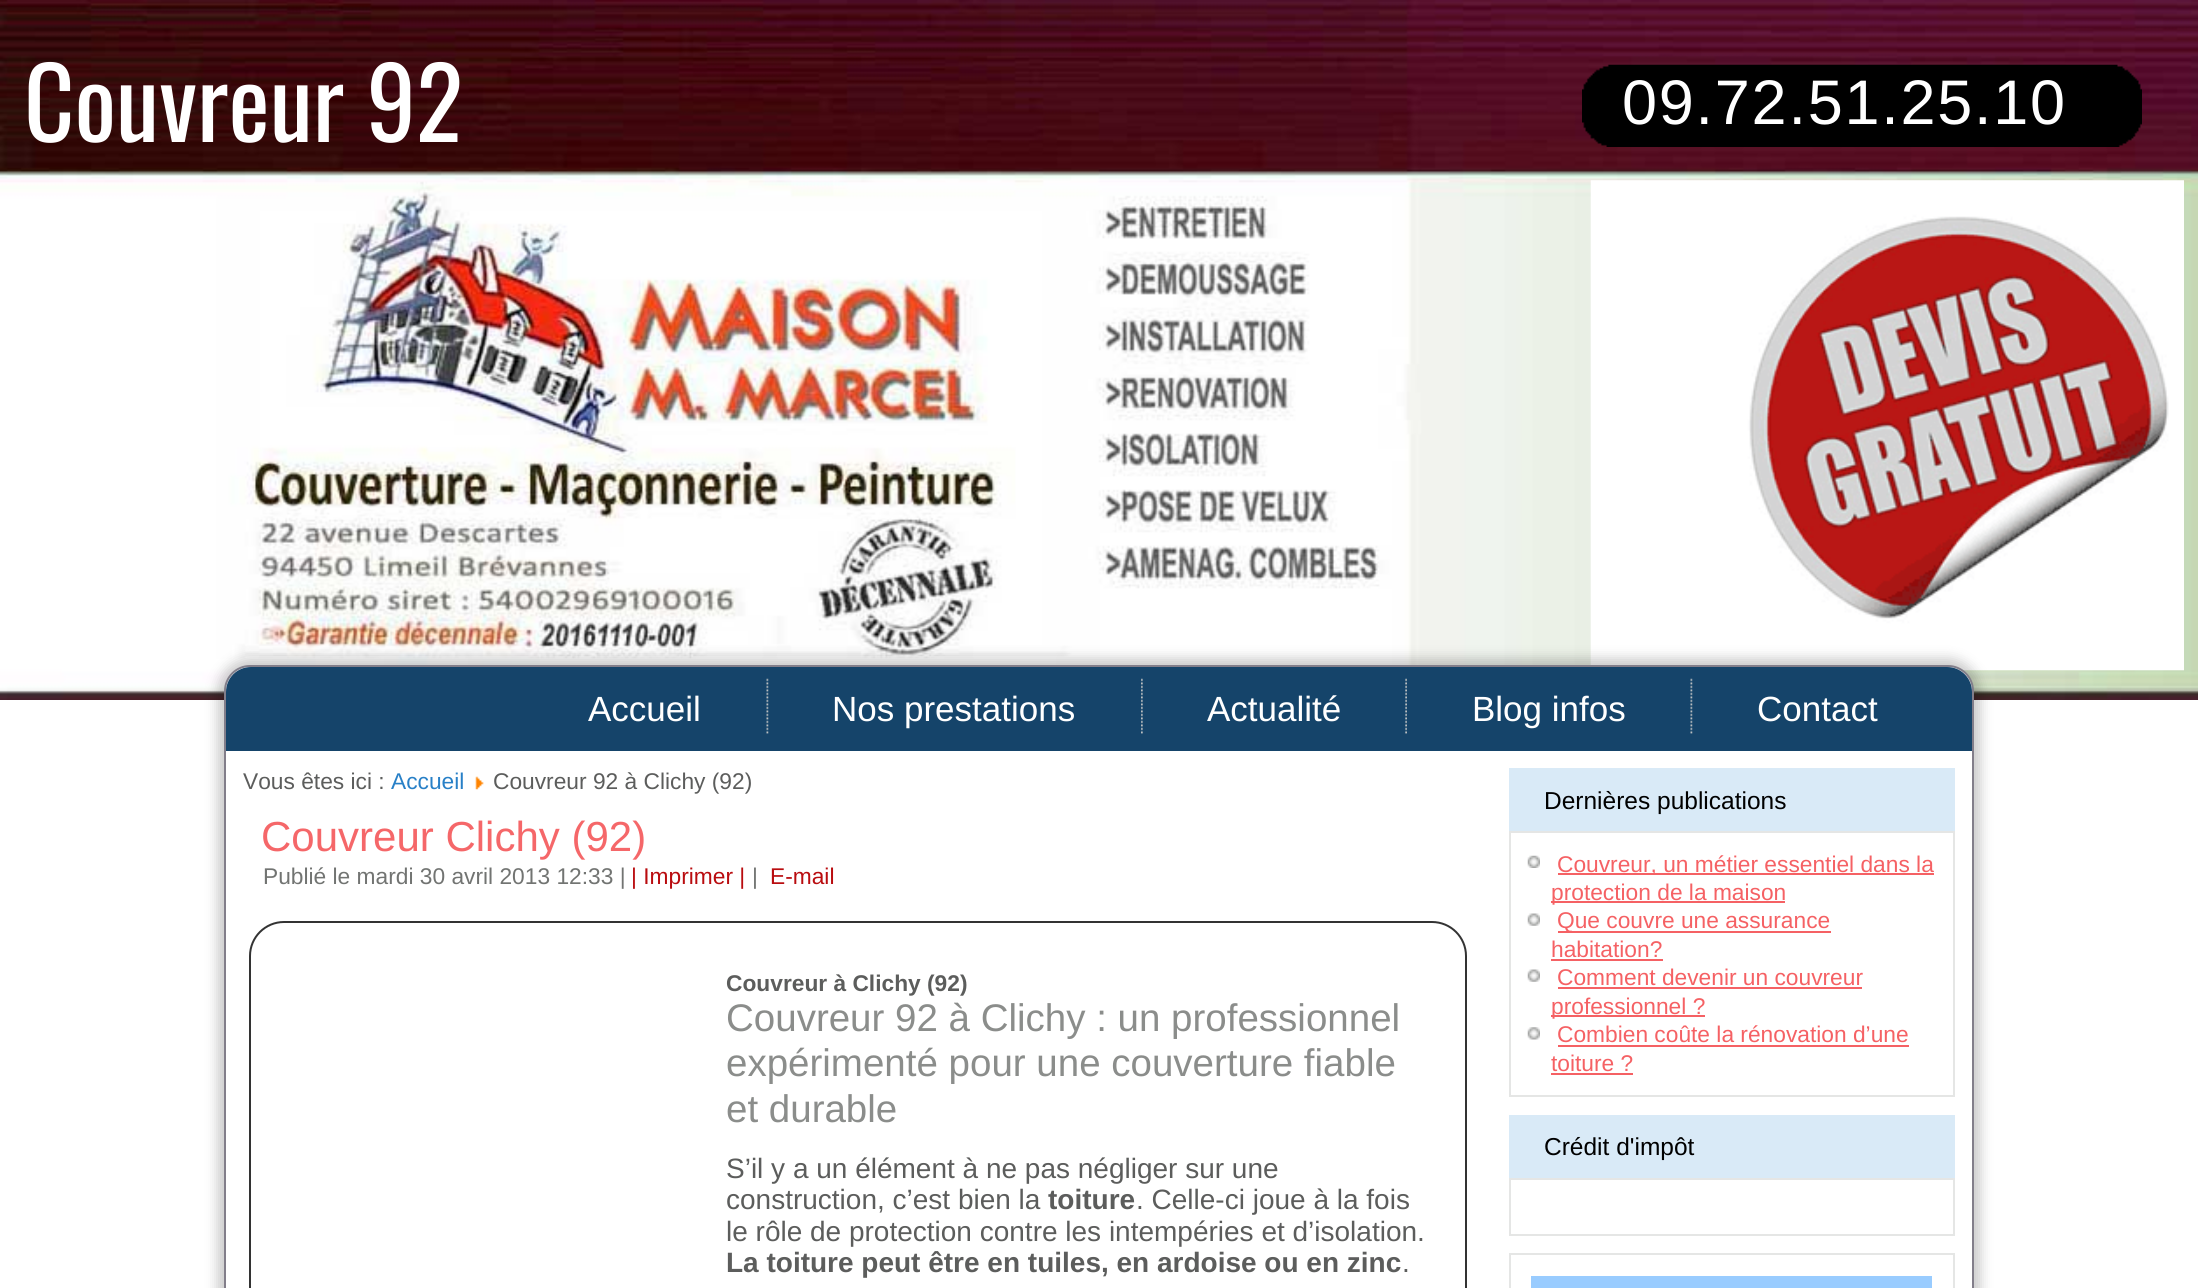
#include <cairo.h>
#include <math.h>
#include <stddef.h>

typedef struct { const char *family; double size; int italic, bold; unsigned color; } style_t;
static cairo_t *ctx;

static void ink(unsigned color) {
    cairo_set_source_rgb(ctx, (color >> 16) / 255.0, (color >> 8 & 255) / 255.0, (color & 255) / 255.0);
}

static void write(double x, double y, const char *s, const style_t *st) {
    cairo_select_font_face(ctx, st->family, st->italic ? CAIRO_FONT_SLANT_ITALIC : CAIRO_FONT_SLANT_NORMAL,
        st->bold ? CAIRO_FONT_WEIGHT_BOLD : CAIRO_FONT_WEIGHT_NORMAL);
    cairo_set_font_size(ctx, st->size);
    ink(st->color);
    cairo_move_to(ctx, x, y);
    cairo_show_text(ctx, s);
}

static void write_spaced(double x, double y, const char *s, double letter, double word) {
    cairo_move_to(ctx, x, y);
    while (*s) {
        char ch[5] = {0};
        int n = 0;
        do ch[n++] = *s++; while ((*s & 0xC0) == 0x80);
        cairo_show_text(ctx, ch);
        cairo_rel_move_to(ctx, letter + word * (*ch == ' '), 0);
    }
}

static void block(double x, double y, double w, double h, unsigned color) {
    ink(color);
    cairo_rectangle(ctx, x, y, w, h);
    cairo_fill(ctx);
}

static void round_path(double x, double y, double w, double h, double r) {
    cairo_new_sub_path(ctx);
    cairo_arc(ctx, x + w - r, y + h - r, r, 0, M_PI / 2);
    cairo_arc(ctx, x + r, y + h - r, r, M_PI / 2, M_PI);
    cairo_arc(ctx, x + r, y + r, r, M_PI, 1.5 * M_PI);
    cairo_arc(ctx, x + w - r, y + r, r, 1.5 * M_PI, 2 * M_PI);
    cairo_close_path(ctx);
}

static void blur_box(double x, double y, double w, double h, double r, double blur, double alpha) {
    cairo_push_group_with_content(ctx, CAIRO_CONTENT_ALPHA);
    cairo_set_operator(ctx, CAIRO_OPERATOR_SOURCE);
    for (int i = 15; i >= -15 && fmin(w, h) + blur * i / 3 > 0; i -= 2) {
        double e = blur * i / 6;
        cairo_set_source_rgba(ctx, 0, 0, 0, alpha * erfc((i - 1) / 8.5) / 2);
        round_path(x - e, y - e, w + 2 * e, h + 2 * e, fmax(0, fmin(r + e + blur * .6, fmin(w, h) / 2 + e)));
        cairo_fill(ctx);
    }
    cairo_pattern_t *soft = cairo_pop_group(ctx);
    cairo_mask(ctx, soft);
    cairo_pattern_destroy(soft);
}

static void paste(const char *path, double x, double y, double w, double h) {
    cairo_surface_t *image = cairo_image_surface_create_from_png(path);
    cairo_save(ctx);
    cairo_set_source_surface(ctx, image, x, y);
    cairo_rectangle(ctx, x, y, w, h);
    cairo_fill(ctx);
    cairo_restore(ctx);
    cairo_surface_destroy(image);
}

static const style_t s1 = {"Oswald", 98, 0, 0, 0xffffff};
static const style_t s2 = {"Liberation Sans", 35, 0, 0, 0xffffff};
static const style_t s3 = {"Liberation Sans", 22.75, 0, 0, 0x5c5d5c};
static const style_t s4 = {"Liberation Sans", 22.75, 0, 0, 0x2880c7};
static const style_t s5 = {"Liberation Sans", 42, 0, 0, 0xf56769};
static const style_t s6 = {"Liberation Sans", 22.75, 0, 0, 0x727472};
static const style_t s7 = {"Liberation Sans", 22.75, 0, 0, 0xb90c0f};
static const style_t s8 = {"Liberation Sans", 22.75, 0, 1, 0x5c5d5c};
static const style_t s9 = {"Liberation Sans", 38.5, 0, 0, 0x8b8d8b};
static const style_t s10 = {"Liberation Sans", 28, 0, 0, 0x5c5d5c};
static const style_t s11 = {"Liberation Sans", 28, 0, 1, 0x5c5d5c};
static const style_t s12 = {"Liberation Sans", 24.5, 0, 0, 0x000000};
static const style_t s13 = {"Liberation Sans", 22.75, 0, 0, 0xf56164};

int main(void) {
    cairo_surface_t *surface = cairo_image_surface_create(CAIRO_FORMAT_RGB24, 2198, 1288);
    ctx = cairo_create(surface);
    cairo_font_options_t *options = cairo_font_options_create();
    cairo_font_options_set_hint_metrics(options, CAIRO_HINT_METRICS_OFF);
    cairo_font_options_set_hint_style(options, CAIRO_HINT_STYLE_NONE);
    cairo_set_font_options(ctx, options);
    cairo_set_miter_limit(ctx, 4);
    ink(0xffffff);
    cairo_paint(ctx);
    paste("pic1.png", 0, 0, 2198, 700);
    write(24, 142, "Couvreur 92", &s1);
    paste("pic2.png", 1582, 64, 560, 83);
    paste("pic3.png", 1590, 180, 594, 491);
    cairo_select_font_face(ctx, "Liberation Sans", CAIRO_FONT_SLANT_NORMAL, CAIRO_FONT_WEIGHT_NORMAL);
    cairo_set_font_size(ctx, 63);
    write_spaced(1622, 124, "09.72.51.25.10", 1.75, 0);
    ink(0x000000);
    blur_box(217, 658, 1764, 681, 33, 6, 0.2);
    ink(0xffffff);
    round_path(225, 666, 1748, 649, 25);
    cairo_fill_preserve(ctx);
    ink(0x827e8a);
    cairo_stroke(ctx);
    ink(0x15446a);
    cairo_new_path(ctx);
    cairo_move_to(ctx, 251, 667);
    cairo_line_to(ctx, 1947, 667);
    cairo_curve_to(ctx, 1961, 667, 1972, 678, 1972, 692);
    cairo_line_to(ctx, 1972, 751);
    cairo_line_to(ctx, 226, 751);
    cairo_line_to(ctx, 226, 692);
    cairo_curve_to(ctx, 226, 678, 237, 667, 251, 667);
    cairo_close_path(ctx);
    cairo_fill(ctx);
    write(588, 721, "Accueil", &s2);
    paste("pic4.png", 766, 678, 3, 56);
    write(832, 721, "Nos prestations", &s2);
    paste("pic5.png", 1141, 678, 2, 56);
    write(1207, 721, "Actualité", &s2);
    paste("pic6.png", 1405, 678, 2, 56);
    write(1472, 721, "Blog infos", &s2);
    paste("pic4.png", 1690, 678, 3, 56);
    write(1757, 721, "Contact", &s2);
    write(243, 789, "Vous êtes ici :", &s3);
    write(391, 789, "Accueil", &s4);
    paste("pic7.png", 475, 776, 9, 14);
    write(493, 789, "Couvreur 92 à Clichy (92)", &s3);
    write(261, 851, "Couvreur Clichy (92)", &s5);
    write(263, 884, "Publié le mardi 30 avril 2013 12:33 |", &s6);
    write(631, 884, "| Imprimer |", &s7);
    write(752, 884, "|", &s6);
    write(770, 884, "E-mail", &s7);
    round_path(250, 922, 1216, 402, 34);
    ink(0x333333);
    cairo_stroke(ctx);
    write(726, 991, "Couvreur à Clichy (92)", &s8);
    write(726, 1031, "Couvreur 92 à Clichy : un professionnel", &s9);
    write(726, 1076, "expérimenté pour une couverture fiable", &s9);
    write(726, 1122, "et durable", &s9);
    write(726, 1178, "S’il y a un élément à ne pas négliger sur une", &s10);
    write(726, 1209, "construction, c’est bien la", &s10);
    write(1048, 1209, "toiture", &s11);
    write(1136, 1209, ". Celle-ci joue à la fois", &s10);
    write(726, 1241, "le rôle de protection contre les intempéries et d’isolation.", &s10);
    write(726, 1272, "La toiture peut être en tuiles, en ardoise ou en zinc", &s11);
    write(1402, 1272, ".", &s10);
    block(1509, 768, 446, 63, 0xd9eaf7);
    write(1544, 809, "Dernières publications", &s12);
    cairo_rectangle(ctx, 1510, 832, 444, 264);
    ink(0xe5e6e5);
    cairo_stroke(ctx);
    paste("pic8.png", 1527, 855, 13, 13);
    block(1558, 873, 376, 2, 0xf56164);
    write(1557, 872, "Couvreur, un métier essentiel dans la", &s13);
    block(1551, 901, 234, 2, 0xf56164);
    write(1551, 900, "protection de la maison", &s13);
    paste("pic9.png", 1527, 913, 13, 13);
    block(1558, 931, 273, 2, 0xf56164);
    write(1557, 928, "Que couvre une assurance", &s13);
    write(1551, 957, "habitation?", &s13);
    block(1551, 959, 112, 2, 0xf56164);
    paste("pic9.png", 1527, 969, 13, 13);
    write(1557, 985, "Comment devenir un couvreur", &s13);
    block(1558, 987, 304, 2, 0xf56164);
    block(1551, 1015, 154, 2, 0xf56164);
    write(1551, 1014, "professionnel ?", &s13);
    paste("pic10.png", 1527, 1027, 13, 13);
    write(1557, 1042, "Combien coûte la rénovation d’une", &s13);
    block(1558, 1045, 351, 2, 0xf56164);
    write(1551, 1071, "toiture ?", &s13);
    block(1551, 1073, 82, 2, 0xf56164);
    block(1509, 1115, 446, 63, 0xd9eaf7);
    write(1544, 1155, "Crédit d'impôt", &s12);
    cairo_rectangle(ctx, 1510, 1179, 444, 56);
    ink(0xe5e6e5);
    cairo_stroke(ctx);
    cairo_rectangle(ctx, 1510, 1254, 444, 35);
    cairo_stroke(ctx);
    block(1531, 1276, 401, 12, 0x99ccff);
    cairo_surface_write_to_png(surface, "screenshot.png");
    cairo_font_options_destroy(options);
    cairo_destroy(ctx);
    cairo_surface_destroy(surface);
    return 0;
}
